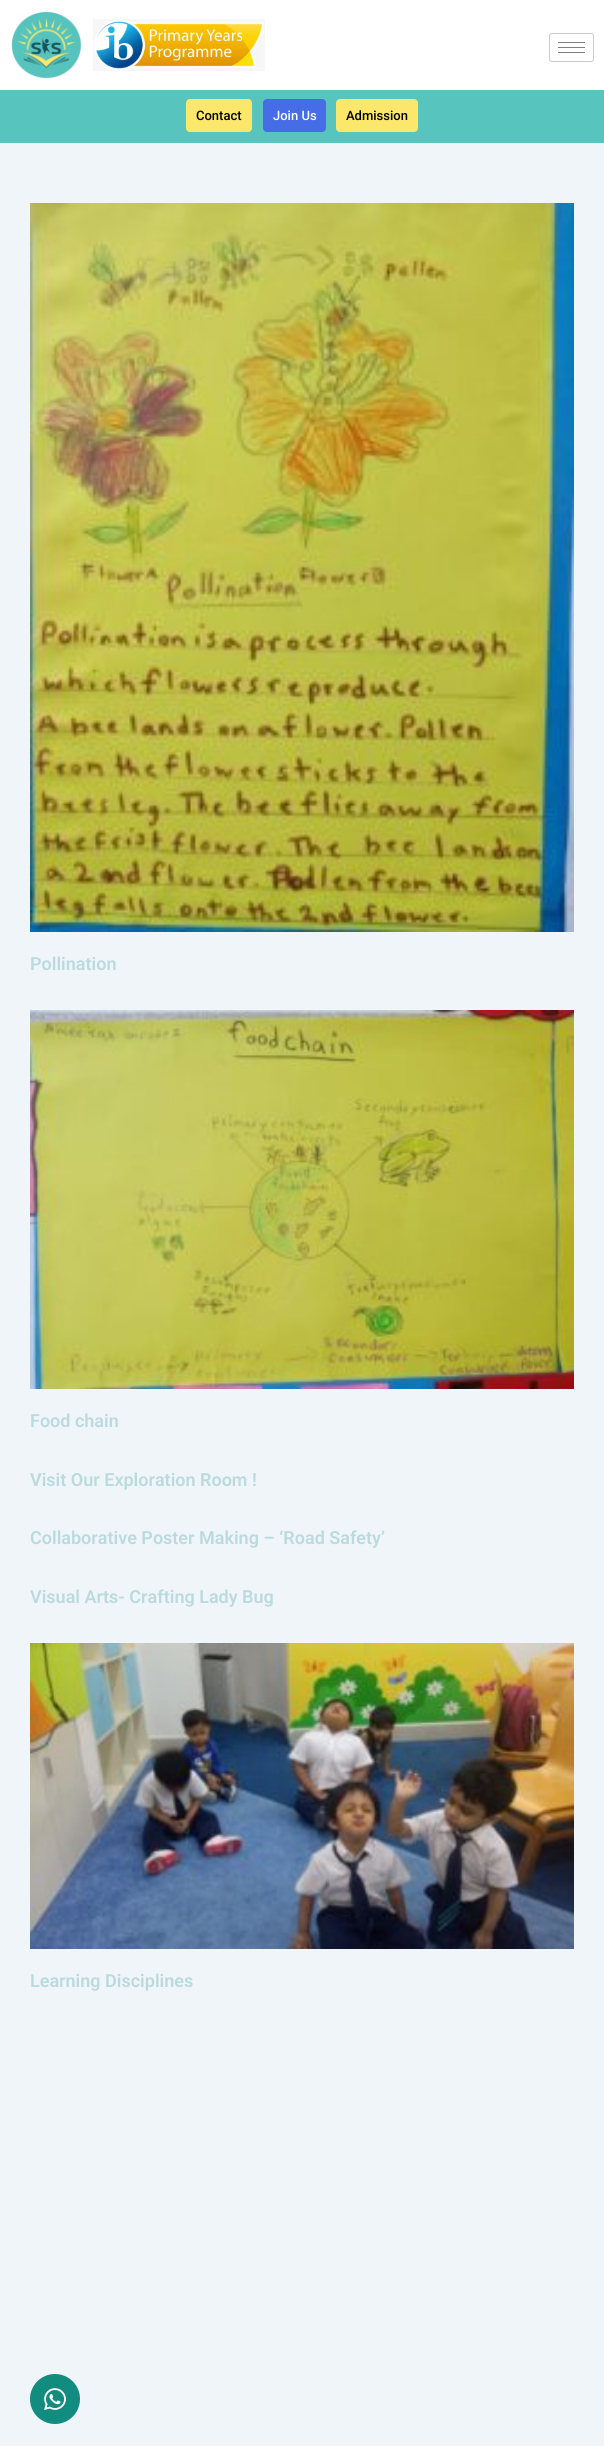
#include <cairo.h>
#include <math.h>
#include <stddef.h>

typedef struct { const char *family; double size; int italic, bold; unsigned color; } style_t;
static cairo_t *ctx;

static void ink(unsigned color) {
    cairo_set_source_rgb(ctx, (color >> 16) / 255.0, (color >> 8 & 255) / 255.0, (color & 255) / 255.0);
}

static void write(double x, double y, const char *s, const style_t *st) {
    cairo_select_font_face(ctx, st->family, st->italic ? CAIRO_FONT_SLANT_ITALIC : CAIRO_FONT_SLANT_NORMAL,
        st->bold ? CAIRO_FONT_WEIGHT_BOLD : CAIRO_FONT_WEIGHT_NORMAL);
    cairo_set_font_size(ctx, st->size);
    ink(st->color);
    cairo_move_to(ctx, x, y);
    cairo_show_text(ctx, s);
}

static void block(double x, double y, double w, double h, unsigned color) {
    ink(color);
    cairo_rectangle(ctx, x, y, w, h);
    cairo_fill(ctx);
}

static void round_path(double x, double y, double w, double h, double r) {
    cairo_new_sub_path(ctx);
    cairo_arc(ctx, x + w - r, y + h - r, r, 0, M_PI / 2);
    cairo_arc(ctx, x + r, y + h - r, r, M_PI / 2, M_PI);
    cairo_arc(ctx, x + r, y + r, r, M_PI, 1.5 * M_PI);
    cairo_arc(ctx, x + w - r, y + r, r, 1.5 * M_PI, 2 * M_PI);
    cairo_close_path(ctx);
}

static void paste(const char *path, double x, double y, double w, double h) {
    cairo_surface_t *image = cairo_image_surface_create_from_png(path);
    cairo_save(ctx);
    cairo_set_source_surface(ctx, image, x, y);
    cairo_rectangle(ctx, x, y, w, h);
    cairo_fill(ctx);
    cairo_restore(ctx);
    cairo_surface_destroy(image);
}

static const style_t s1 = {"Roboto Medium", 13, 0, 0, 0x000000};
static const style_t s2 = {"Roboto Medium", 13, 0, 0, 0xffffff};
static const style_t s3 = {"Roboto SemiBold", 18, 0, 0, 0xbadbdd};

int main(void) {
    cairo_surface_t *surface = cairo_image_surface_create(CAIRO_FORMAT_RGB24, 604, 2446);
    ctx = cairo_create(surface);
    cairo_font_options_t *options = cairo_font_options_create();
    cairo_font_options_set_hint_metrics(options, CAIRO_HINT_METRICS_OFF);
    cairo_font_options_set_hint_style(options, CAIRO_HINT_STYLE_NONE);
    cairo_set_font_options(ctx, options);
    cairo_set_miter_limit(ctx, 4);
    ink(0xf0f5fa);
    cairo_paint(ctx);
    block(0, 0, 604, 90, 0xffffff);
    paste("pic1.png", 11, 12, 71, 67);
    paste("pic2.png", 93, 19, 172, 52);
    round_path(549.5, 33.5, 44, 28, 2.5);
    ink(0xcccccc);
    cairo_set_line_width(ctx, 1);
    cairo_stroke(ctx);
    block(558, 42, 27, 1, 0x808080);
    block(558, 47, 27, 1, 0x808080);
    block(558, 52, 27, 1, 0x808080);
    block(0, 90, 604, 53, 0x57c4be);
    ink(0xfbe76c);
    round_path(186, 99, 66, 33, 4);
    cairo_fill(ctx);
    write(196, 120, "Contact", &s1);
    ink(0x466de6);
    round_path(263, 99, 63, 33, 4);
    cairo_fill(ctx);
    write(273, 120, "Join Us", &s2);
    ink(0xfbe76c);
    round_path(336, 99, 82, 33, 4);
    cairo_fill(ctx);
    write(346, 120, "Admission", &s1);
    paste("pic3.png", 30, 203, 544, 729);
    write(30, 970, "Pollination", &s3);
    paste("pic4.png", 30, 1010, 544, 379);
    write(30, 1427, "Food chain", &s3);
    write(30, 1486, "Visit Our Exploration Room !", &s3);
    write(30, 1544, "Collaborative Poster Making – ‘Road Safety’", &s3);
    write(30, 1603, "Visual Arts- Crafting Lady Bug", &s3);
    paste("pic5.png", 30, 1643, 544, 306);
    write(30, 1987, "Learning Disciplines", &s3);
    ink(0x118c7e);
    cairo_new_path(ctx);
    cairo_arc(ctx, 55, 2399, 25, 0, 2 * M_PI);
    cairo_fill(ctx);
    paste("pic6.png", 44, 2388, 22, 22);
    cairo_surface_write_to_png(surface, "screenshot.png");
    cairo_font_options_destroy(options);
    cairo_destroy(ctx);
    cairo_surface_destroy(surface);
    return 0;
}
